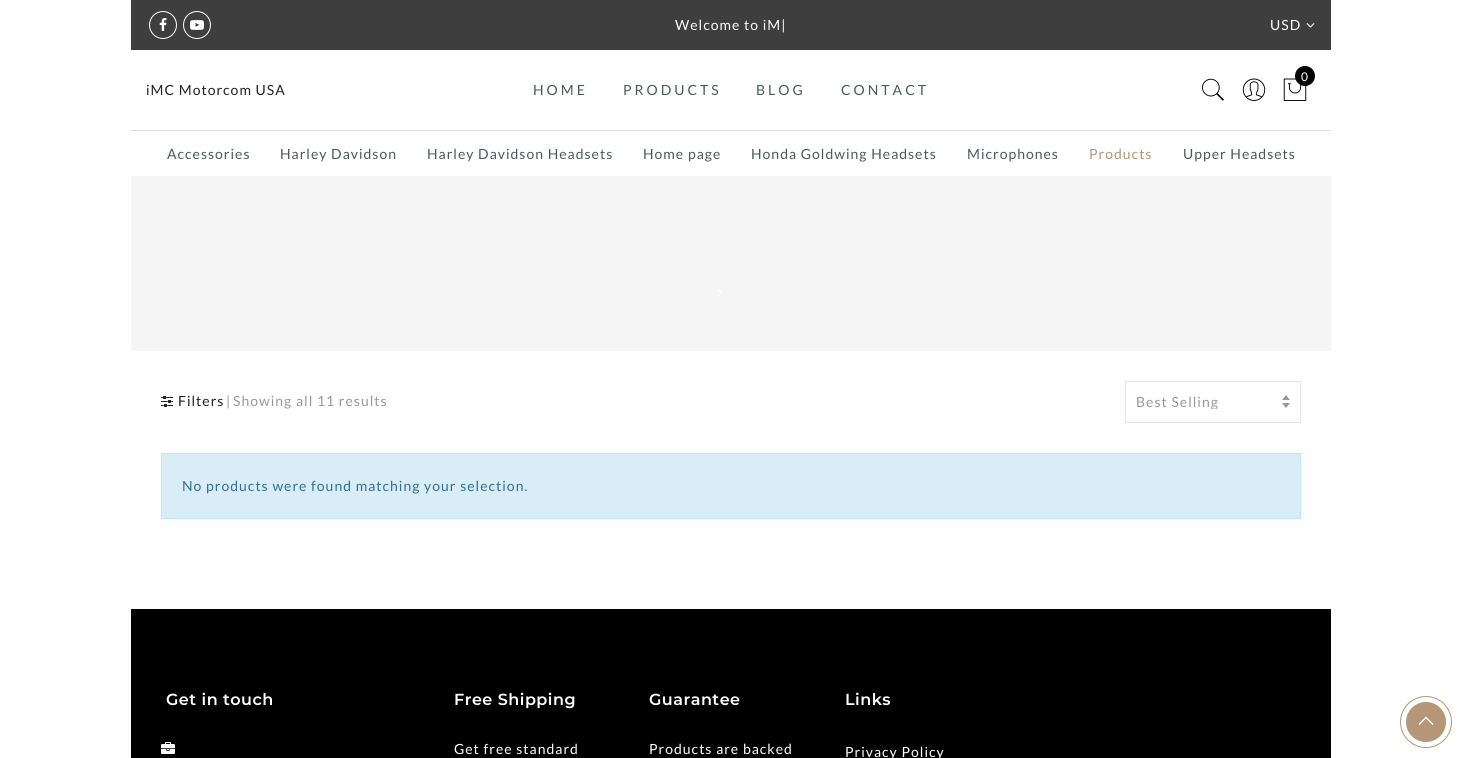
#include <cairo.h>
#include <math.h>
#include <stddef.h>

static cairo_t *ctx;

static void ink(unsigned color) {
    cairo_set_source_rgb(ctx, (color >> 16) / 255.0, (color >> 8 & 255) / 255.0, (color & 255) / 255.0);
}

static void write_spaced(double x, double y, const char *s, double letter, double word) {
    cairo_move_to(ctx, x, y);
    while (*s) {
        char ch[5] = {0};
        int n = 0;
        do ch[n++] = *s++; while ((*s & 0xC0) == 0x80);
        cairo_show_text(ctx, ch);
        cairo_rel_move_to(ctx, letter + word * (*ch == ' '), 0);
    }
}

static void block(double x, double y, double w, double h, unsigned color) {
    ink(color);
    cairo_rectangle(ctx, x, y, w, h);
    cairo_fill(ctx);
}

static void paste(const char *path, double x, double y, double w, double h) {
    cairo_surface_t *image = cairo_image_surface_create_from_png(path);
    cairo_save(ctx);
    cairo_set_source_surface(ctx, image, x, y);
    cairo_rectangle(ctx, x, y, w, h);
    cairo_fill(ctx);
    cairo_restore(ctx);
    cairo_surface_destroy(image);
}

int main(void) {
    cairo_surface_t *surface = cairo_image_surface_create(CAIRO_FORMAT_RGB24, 1462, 758);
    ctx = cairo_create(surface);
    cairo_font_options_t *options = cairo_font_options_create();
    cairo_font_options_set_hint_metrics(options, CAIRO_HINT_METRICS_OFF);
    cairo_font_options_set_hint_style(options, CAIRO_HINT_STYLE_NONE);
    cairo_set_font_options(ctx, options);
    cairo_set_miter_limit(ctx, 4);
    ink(0xffffff);
    cairo_paint(ctx);
    block(131, 0, 1200, 50, 0x3e3e3e);
    cairo_arc(ctx, 163, 25, 13.5, 0, 2 * M_PI);
    ink(0xffffff);
    cairo_set_line_width(ctx, 1);
    cairo_stroke(ctx);
    paste("pic1.png", 159, 18, 8, 13);
    cairo_arc(ctx, 197, 25, 13.5, 0, 2 * M_PI);
    cairo_stroke(ctx);
    paste("pic2.png", 190, 20, 14, 10);
    cairo_select_font_face(ctx, "Lato", CAIRO_FONT_SLANT_NORMAL, CAIRO_FONT_WEIGHT_NORMAL);
    cairo_set_font_size(ctx, 14);
    write_spaced(675, 30, "Welcome to iM|", 1, 0);
    write_spaced(1270, 30, "USD", 1, 0);
    paste("pic3.png", 1306, 23, 9, 5);
    paste("pic4.png", 1283, 78, 24, 23);
    ink(0x000000);
    cairo_arc(ctx, 1305, 76, 10, 0, 2 * M_PI);
    cairo_fill(ctx);
    cairo_set_font_size(ctx, 12);
    ink(0xffffff);
    write_spaced(1301, 81, "0", 1, 0);
    paste("pic5.png", 1202, 78, 22, 23);
    paste("pic6.png", 1242, 78, 24, 23);
    cairo_set_font_size(ctx, 14);
    ink(0x222222);
    write_spaced(146, 95, "iMC Motorcom USA", 1, 0);
    ink(0x4d5959);
    write_spaced(533, 95, "HOME", 3, 0);
    write_spaced(623, 95, "PRODUCTS", 3, 0);
    write_spaced(756, 95, "BLOG", 3, 0);
    write_spaced(841, 95, "CONTACT", 3, 0);
    block(131, 130, 1200, 1, 0xdedede);
    ink(0x4d5959);
    write_spaced(167, 159, "Accessories", 1, 0);
    write_spaced(280, 159, "Harley Davidson", 1, 0);
    write_spaced(427, 159, "Harley Davidson Headsets", 1, 0);
    write_spaced(643, 159, "Home page", 1, 0);
    write_spaced(751, 159, "Honda Goldwing Headsets", 1, 0);
    write_spaced(967, 159, "Microphones", 1, 0);
    ink(0xb59677);
    write_spaced(1089, 159, "Products", 1, 0);
    ink(0x4d5959);
    write_spaced(1183, 159, "Upper Headsets", 1, 0);
    block(131, 176, 1200, 175, 0xf5f5f5);
    paste("pic7.png", 717, 289, 5, 7);
    paste("pic8.png", 161, 396, 12, 11);
    ink(0x222222);
    write_spaced(178, 406, "Filters", 1, 0);
    ink(0x999999);
    write_spaced(226, 406, "|", 1, 0);
    write_spaced(233, 406, "Showing all 11 results", 1, 0);
    cairo_rectangle(ctx, 1125.5, 381.5, 175, 41);
    ink(0xe5e5e5);
    cairo_stroke(ctx);
    paste("pic9.png", 1282, 395, 8, 13);
    cairo_save(ctx);
    cairo_rectangle(ctx, 1136, 395, 136, 14);
    cairo_clip(ctx);
    ink(0x999999);
    write_spaced(1136, 407, "Best Selling", 1, 0);
    cairo_restore(ctx);
    ink(0xd9edf7);
    cairo_rectangle(ctx, 161.5, 453.5, 1139, 65);
    cairo_fill_preserve(ctx);
    ink(0xbce8f1);
    cairo_stroke(ctx);
    ink(0x31708f);
    write_spaced(182, 491, "No products were found matching your selection.", 1, 0);
    block(131, 609, 1200, 149, 0x000000);
    cairo_select_font_face(ctx, "Montserrat SemiBold", CAIRO_FONT_SLANT_NORMAL, CAIRO_FONT_WEIGHT_NORMAL);
    cairo_set_font_size(ctx, 16);
    ink(0xffffff);
    write_spaced(166, 705, "Get in touch", 0.5, 0);
    paste("pic10.png", 161, 742, 14, 12);
    write_spaced(454, 705, "Free Shipping", 0.5, 0);
    cairo_select_font_face(ctx, "Lato", CAIRO_FONT_SLANT_NORMAL, CAIRO_FONT_WEIGHT_NORMAL);
    cairo_set_font_size(ctx, 14);
    write_spaced(454, 754, "Get free standard", 1, 0);
    cairo_select_font_face(ctx, "Montserrat SemiBold", CAIRO_FONT_SLANT_NORMAL, CAIRO_FONT_WEIGHT_NORMAL);
    cairo_set_font_size(ctx, 16);
    write_spaced(649, 705, "Guarantee", 0.5, 0);
    cairo_select_font_face(ctx, "Lato", CAIRO_FONT_SLANT_NORMAL, CAIRO_FONT_WEIGHT_NORMAL);
    cairo_set_font_size(ctx, 14);
    write_spaced(649, 754, "Products are backed", 1, 0);
    cairo_select_font_face(ctx, "Montserrat SemiBold", CAIRO_FONT_SLANT_NORMAL, CAIRO_FONT_WEIGHT_NORMAL);
    cairo_set_font_size(ctx, 16);
    write_spaced(845, 705, "Links", 0.5, 0);
    cairo_select_font_face(ctx, "Lato", CAIRO_FONT_SLANT_NORMAL, CAIRO_FONT_WEIGHT_NORMAL);
    cairo_set_font_size(ctx, 14);
    write_spaced(845, 757, "Privacy Policy", 1, 0);
    cairo_new_path(ctx);
    cairo_arc(ctx, 1426, 722, 25.5, 0, 2 * M_PI);
    ink(0xb59677);
    cairo_stroke(ctx);
    cairo_arc(ctx, 1426, 722, 20, 0, 2 * M_PI);
    cairo_fill(ctx);
    paste("pic11.png", 1418, 716, 16, 9);
    cairo_surface_write_to_png(surface, "screenshot.png");
    cairo_font_options_destroy(options);
    cairo_destroy(ctx);
    cairo_surface_destroy(surface);
    return 0;
}
